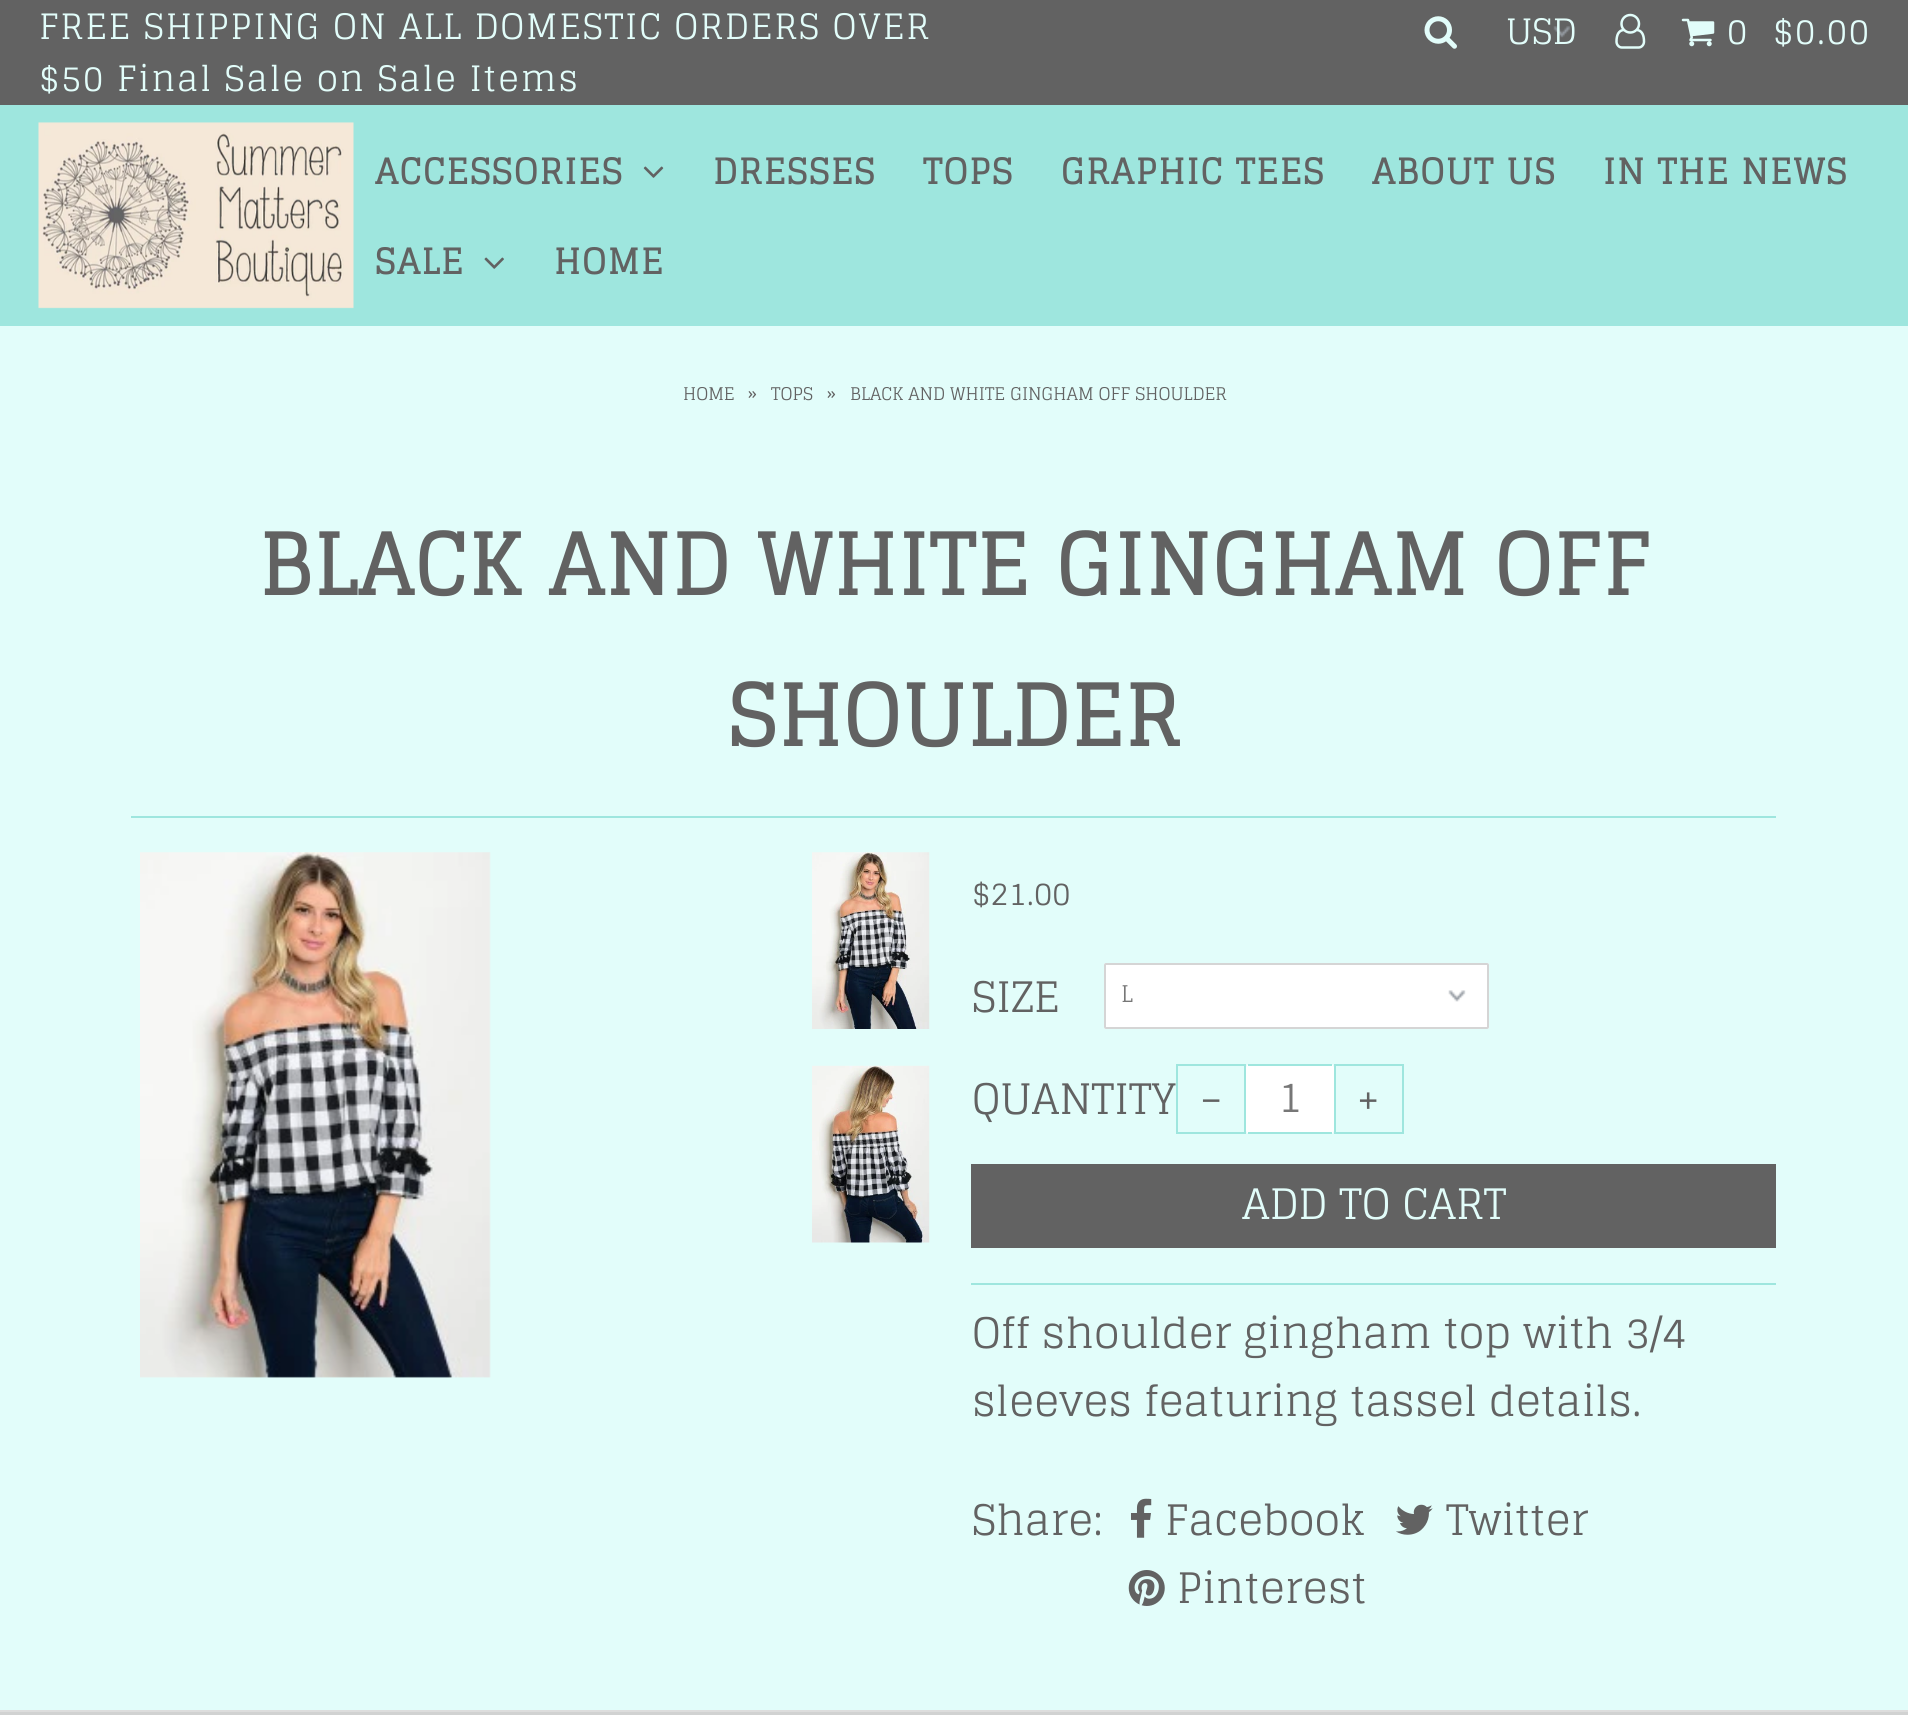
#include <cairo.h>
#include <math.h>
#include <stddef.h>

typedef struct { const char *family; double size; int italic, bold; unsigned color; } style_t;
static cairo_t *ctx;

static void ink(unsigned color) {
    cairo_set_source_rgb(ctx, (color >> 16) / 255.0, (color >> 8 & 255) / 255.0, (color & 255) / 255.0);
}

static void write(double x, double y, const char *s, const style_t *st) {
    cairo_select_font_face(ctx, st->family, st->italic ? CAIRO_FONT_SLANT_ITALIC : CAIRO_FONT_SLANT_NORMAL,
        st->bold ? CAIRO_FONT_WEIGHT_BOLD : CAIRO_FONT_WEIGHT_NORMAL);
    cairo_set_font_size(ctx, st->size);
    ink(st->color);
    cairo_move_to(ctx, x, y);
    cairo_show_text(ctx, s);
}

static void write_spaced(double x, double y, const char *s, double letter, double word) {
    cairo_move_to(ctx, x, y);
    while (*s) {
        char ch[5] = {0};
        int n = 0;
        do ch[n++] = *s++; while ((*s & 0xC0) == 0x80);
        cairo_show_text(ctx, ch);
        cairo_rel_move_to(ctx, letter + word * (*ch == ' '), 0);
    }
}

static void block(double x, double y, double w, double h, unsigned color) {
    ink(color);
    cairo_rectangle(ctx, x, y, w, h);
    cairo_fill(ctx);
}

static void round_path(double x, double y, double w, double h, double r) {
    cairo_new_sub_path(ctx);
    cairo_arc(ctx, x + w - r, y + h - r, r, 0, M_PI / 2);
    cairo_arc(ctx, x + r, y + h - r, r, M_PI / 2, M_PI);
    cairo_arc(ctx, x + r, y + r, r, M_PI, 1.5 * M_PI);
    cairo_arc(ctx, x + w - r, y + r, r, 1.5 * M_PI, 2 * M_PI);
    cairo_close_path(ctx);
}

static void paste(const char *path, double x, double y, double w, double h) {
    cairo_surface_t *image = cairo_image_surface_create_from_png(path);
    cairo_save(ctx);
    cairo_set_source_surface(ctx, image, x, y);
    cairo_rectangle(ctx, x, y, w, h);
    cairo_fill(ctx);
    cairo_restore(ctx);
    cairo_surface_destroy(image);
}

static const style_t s1 = {"Glegoo", 35, 0, 0, 0xe2fdfa};
static const style_t s2 = {"Glegoo", 17.5, 0, 0, 0x626262};
static const style_t s3 = {"Glegoo", 31.5, 0, 0, 0x626262};
static const style_t s4 = {"Glegoo", 42, 0, 0, 0x626262};
static const style_t s5 = {"Glegoo", 23, 0, 0, 0x777777};
static const style_t s6 = {"Glegoo", 42, 0, 0, 0x777777};
static const style_t s7 = {"Glegoo", 42, 0, 0, 0xe2fdfa};

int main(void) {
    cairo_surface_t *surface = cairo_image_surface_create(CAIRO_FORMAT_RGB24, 1908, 1715);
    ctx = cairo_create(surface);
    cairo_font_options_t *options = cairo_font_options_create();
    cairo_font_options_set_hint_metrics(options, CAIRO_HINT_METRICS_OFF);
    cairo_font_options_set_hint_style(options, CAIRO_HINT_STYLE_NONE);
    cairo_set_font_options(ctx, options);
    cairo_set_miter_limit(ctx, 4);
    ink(0xe2fdfa);
    cairo_paint(ctx);
    block(0, 105, 1908, 221, 0x9ee6de);
    block(0, 0, 1908, 105, 0x626262);
    cairo_select_font_face(ctx, "Glegoo", CAIRO_FONT_SLANT_NORMAL, CAIRO_FONT_WEIGHT_NORMAL);
    cairo_set_font_size(ctx, 35);
    ink(0xe2fdfa);
    write_spaced(39, 39, "FREE SHIPPING ON ALL DOMESTIC ORDERS OVER", 1.75, 0);
    write_spaced(39, 91, "$50 Final Sale on Sale Items", 1.75, 0);
    paste("pic1.png", 1424, 16, 33, 33);
    paste("pic2.png", 1553, 26, 18, 12);
    write(1506, 44, "USD", &s1);
    paste("pic3.png", 1615, 13, 31, 36);
    paste("pic4.png", 1681, 18, 34, 29);
    write_spaced(1727, 44, "0", 1.75, 0);
    write_spaced(1773, 44, "$0.00", 1.75, 0);
    paste("pic5.png", 38, 122, 316, 187);
    cairo_select_font_face(ctx, "Glegoo", CAIRO_FONT_SLANT_NORMAL, CAIRO_FONT_WEIGHT_BOLD);
    ink(0x626262);
    write_spaced(375, 184, "ACCESSORIES", 1.75, 0);
    paste("pic6.png", 643, 166, 21, 12);
    write_spaced(713, 184, "DRESSES", 1.75, 0);
    write_spaced(923, 184, "TOPS", 1.75, 0);
    write_spaced(1061, 184, "GRAPHIC TEES", 1.75, 0);
    write_spaced(1372, 184, "ABOUT US", 1.75, 0);
    write_spaced(1603, 184, "IN THE NEWS", 1.75, 0);
    write_spaced(375, 274, "SALE", 1.75, 0);
    paste("pic7.png", 484, 257, 20, 12);
    write_spaced(554, 274, "HOME", 1.75, 0);
    write(683, 400, "HOME", &s2);
    write(748, 400, "»", &s2);
    write(771, 400, "TOPS", &s2);
    write(827, 400, "»", &s2);
    write(850, 400, "BLACK AND WHITE GINGHAM OFF SHOULDER", &s2);
    block(131, 816, 1645, 2, 0x9ee6de);
    cairo_select_font_face(ctx, "Glegoo", CAIRO_FONT_SLANT_NORMAL, CAIRO_FONT_WEIGHT_BOLD);
    cairo_set_font_size(ctx, 84);
    ink(0x626262);
    write_spaced(259, 595, "BLACK AND WHITE GINGHAM OFF", 1.75, 0);
    write_spaced(728, 746, "SHOULDER", 1.75, 0);
    paste("pic8.png", 140, 852, 351, 526);
    paste("pic9.png", 812, 852, 118, 177);
    paste("pic10.png", 812, 1065, 118, 178);
    write(972, 905, "$21.00", &s3);
    block(971, 1283, 805, 2, 0x9ee6de);
    write(972, 1012, "SIZE", &s4);
    ink(0xffffff);
    round_path(1104, 963, 385, 66, 2);
    cairo_fill(ctx);
    paste("pic11.png", 1448, 990, 18, 12);
    round_path(1105, 964, 383, 64, 1);
    ink(0xd5d5d5);
    cairo_stroke(ctx);
    write(1121, 1002, "L", &s5);
    write(972, 1114, "QUANTITY", &s4);
    cairo_rectangle(ctx, 1177, 1065, 68, 68);
    ink(0x9ee6de);
    cairo_stroke(ctx);
    write(1199, 1114, "−", &s4);
    ink(0xffffff);
    round_path(1246, 1064, 88, 70, 4);
    cairo_fill(ctx);
    block(1248, 1064, 84, 2, 0x9ee6de);
    block(1248, 1132, 84, 2, 0x9ee6de);
    write(1278, 1112, "1", &s6);
    cairo_rectangle(ctx, 1335, 1065, 68, 68);
    ink(0x9ee6de);
    cairo_stroke(ctx);
    write(1356, 1114, "+", &s4);
    block(971, 1164, 805, 84, 0x626262);
    write(1242, 1219, "ADD TO CART", &s7);
    write(972, 1348, "Off shoulder gingham top with 3/4", &s4);
    write(972, 1416, "sleeves featuring tassel details.", &s4);
    write(972, 1535, "Share:", &s4);
    paste("pic12.png", 1131, 1498, 21, 40);
    write(1165, 1535, "Facebook", &s4);
    paste("pic13.png", 1396, 1504, 37, 31);
    write(1446, 1535, "Twitter", &s4);
    paste("pic14.png", 1128, 1570, 37, 36);
    write(1177, 1603, "Pinterest", &s4);
    block(0, 1712, 1908, 3, 0xd1d2d2);
    block(0, 1710, 1908, 2, 0xdddddd);
    cairo_surface_write_to_png(surface, "screenshot.png");
    cairo_font_options_destroy(options);
    cairo_destroy(ctx);
    cairo_surface_destroy(surface);
    return 0;
}
